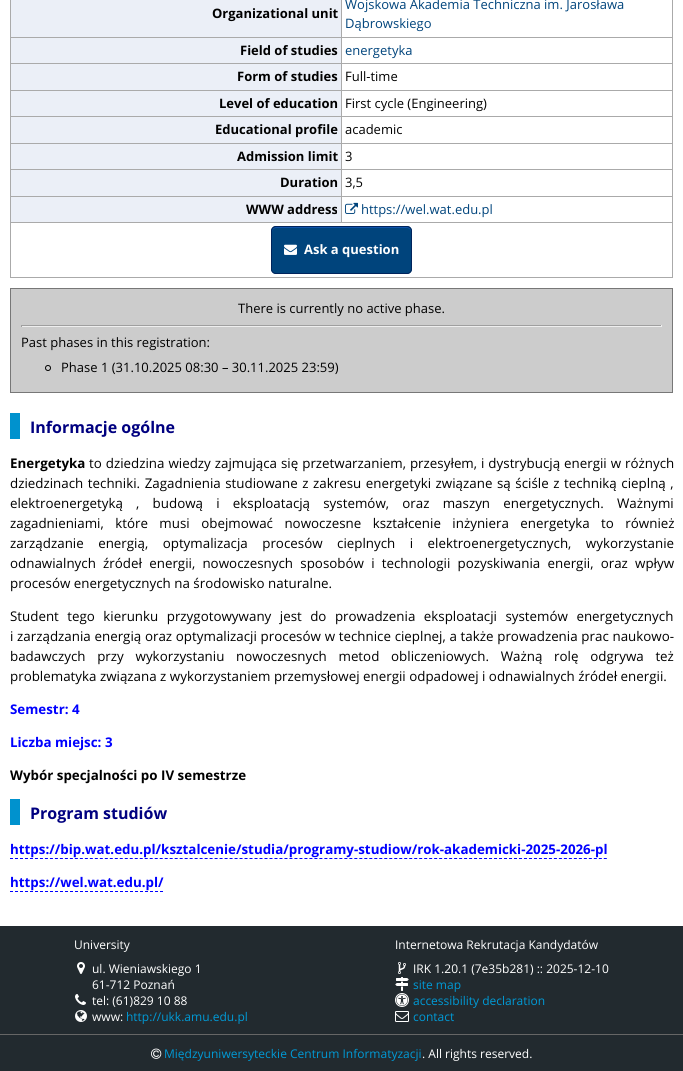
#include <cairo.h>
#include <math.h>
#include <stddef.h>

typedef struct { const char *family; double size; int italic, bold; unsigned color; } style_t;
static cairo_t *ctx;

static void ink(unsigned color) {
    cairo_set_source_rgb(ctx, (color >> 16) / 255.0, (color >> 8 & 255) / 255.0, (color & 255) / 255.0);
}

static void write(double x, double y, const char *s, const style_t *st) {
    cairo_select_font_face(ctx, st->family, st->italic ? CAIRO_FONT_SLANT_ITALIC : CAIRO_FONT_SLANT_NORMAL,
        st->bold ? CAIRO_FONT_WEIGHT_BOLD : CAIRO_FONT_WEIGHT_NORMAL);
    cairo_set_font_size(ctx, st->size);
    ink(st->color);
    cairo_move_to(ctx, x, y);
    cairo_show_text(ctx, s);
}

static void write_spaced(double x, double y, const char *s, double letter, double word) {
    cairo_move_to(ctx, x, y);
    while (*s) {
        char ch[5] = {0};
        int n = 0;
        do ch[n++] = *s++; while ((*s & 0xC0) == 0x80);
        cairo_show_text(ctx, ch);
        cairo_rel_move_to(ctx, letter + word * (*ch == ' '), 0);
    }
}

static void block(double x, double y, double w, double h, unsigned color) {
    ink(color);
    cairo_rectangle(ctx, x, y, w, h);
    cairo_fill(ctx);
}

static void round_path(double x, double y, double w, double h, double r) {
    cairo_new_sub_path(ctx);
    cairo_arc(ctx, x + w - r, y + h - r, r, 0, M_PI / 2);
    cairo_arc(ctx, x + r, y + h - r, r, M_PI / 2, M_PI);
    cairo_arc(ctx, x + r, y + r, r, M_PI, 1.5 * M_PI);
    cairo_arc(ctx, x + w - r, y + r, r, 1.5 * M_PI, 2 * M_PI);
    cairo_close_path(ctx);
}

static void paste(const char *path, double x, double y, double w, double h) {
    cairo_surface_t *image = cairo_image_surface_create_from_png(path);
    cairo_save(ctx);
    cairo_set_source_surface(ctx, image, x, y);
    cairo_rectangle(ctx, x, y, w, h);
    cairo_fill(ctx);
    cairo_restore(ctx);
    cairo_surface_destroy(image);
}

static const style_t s1 = {"Open Sans", 13, 0, 1, 0x000000};
static const style_t s2 = {"Open Sans", 13, 0, 0, 0x00447c};
static const style_t s3 = {"Open Sans", 13, 0, 0, 0x000000};
static const style_t s4 = {"Open Sans", 13, 0, 1, 0xffffff};
static const style_t s5 = {"Open Sans", 16, 0, 1, 0x000080};
static const style_t s6 = {"Open Sans", 13.35, 0, 1, 0x000000};
static const style_t s7 = {"Open Sans", 13.35, 0, 0, 0x000000};
static const style_t s8 = {"Open Sans", 13.35, 0, 1, 0x0000ff};
static const style_t s9 = {"Open Sans", 12, 0, 0, 0xffffff};
static const style_t s10 = {"Open Sans", 12, 0, 0, 0x009ad6};

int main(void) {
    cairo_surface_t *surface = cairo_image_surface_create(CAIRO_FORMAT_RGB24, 683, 1071);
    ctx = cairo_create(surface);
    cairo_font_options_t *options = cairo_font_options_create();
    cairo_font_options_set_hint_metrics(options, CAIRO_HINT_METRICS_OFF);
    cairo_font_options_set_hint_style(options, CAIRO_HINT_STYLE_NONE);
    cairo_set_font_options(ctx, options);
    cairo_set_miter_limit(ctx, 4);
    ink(0x222a2f);
    cairo_paint(ctx);
    block(0, 0, 683, 926, 0xffffff);
    block(11, 0, 330, 37, 0xebeff7);
    write(212, 18, "Organizational unit", &s1);
    block(341, 37, 332, 1, 0xaaaaaa);
    block(341, 63, 332, 1, 0xaaaaaa);
    block(341, 90, 332, 1, 0xaaaaaa);
    block(341, 116, 332, 1, 0xaaaaaa);
    block(341, 143, 332, 1, 0xaaaaaa);
    block(341, 169, 332, 1, 0xaaaaaa);
    block(341, 196, 332, 1, 0xaaaaaa);
    block(10, 222, 663, 1, 0xaaaaaa);
    block(341, 196, 1, 27, 0xaaaaaa);
    block(10, 196, 332, 1, 0xaaaaaa);
    block(341, 169, 1, 28, 0xaaaaaa);
    block(10, 169, 332, 1, 0xaaaaaa);
    block(341, 143, 1, 27, 0xaaaaaa);
    block(10, 143, 332, 1, 0xaaaaaa);
    block(341, 116, 1, 28, 0xaaaaaa);
    block(10, 116, 332, 1, 0xaaaaaa);
    block(341, 90, 1, 27, 0xaaaaaa);
    block(10, 90, 332, 1, 0xaaaaaa);
    block(341, 63, 1, 28, 0xaaaaaa);
    block(10, 63, 332, 1, 0xaaaaaa);
    block(341, 37, 1, 27, 0xaaaaaa);
    block(10, 37, 332, 1, 0xaaaaaa);
    block(341, 0, 1, 38, 0xaaaaaa);
    write(345, 9, "Wojskowa Akademia Techniczna im. Jarosława", &s2);
    write(345, 28, "Dąbrowskiego", &s2);
    block(11, 38, 330, 25, 0xebeff7);
    block(672, 222, 1, 56, 0xaaaaaa);
    block(10, 277, 663, 1, 0xaaaaaa);
    block(10, 222, 1, 56, 0xaaaaaa);
    block(10, 196, 1, 27, 0xaaaaaa);
    block(10, 169, 1, 28, 0xaaaaaa);
    block(10, 143, 1, 27, 0xaaaaaa);
    block(10, 116, 1, 28, 0xaaaaaa);
    block(10, 90, 1, 27, 0xaaaaaa);
    block(10, 63, 1, 28, 0xaaaaaa);
    block(10, 0, 1, 64, 0xaaaaaa);
    write(240, 55, "Field of studies", &s1);
    block(672, 196, 1, 27, 0xaaaaaa);
    block(672, 169, 1, 28, 0xaaaaaa);
    block(672, 143, 1, 27, 0xaaaaaa);
    block(672, 116, 1, 28, 0xaaaaaa);
    block(672, 90, 1, 27, 0xaaaaaa);
    block(672, 63, 1, 28, 0xaaaaaa);
    block(672, 0, 1, 64, 0xaaaaaa);
    write(345, 55, "energetyka", &s2);
    block(11, 64, 330, 26, 0xebeff7);
    write(237, 81, "Form of studies", &s1);
    write(345, 81, "Full-time", &s3);
    block(11, 91, 330, 25, 0xebeff7);
    write(219, 108, "Level of education", &s1);
    write(345, 108, "First cycle (Engineering)", &s3);
    block(11, 117, 330, 26, 0xebeff7);
    write(215, 134, "Educational profile", &s1);
    write(345, 134, "academic", &s3);
    block(11, 144, 330, 25, 0xebeff7);
    write(237, 161, "Admission limit", &s1);
    write(345, 161, "3", &s3);
    block(11, 170, 330, 26, 0xebeff7);
    write(280, 187, "Duration", &s1);
    write(345, 187, "3,5", &s3);
    block(11, 197, 330, 25, 0xebeff7);
    write(246, 214, "WWW address", &s1);
    paste("pic1.png", 345, 202, 13, 12);
    write(361, 214, "https://wel.wat.edu.pl", &s2);
    round_path(271, 226, 141, 48, 5);
    cairo_fill(ctx);
    ink(0x1054ac);
    cairo_new_path(ctx);
    cairo_move_to(ctx, 276, 228);
    cairo_line_to(ctx, 407, 228);
    cairo_curve_to(ctx, 409, 228, 411, 230, 411, 232);
    cairo_line_to(ctx, 411, 231);
    cairo_curve_to(ctx, 411, 229, 409, 227, 407, 227);
    cairo_line_to(ctx, 276, 227);
    cairo_curve_to(ctx, 274, 227, 272, 229, 272, 231);
    cairo_line_to(ctx, 272, 232);
    cairo_curve_to(ctx, 272, 230, 274, 228, 276, 228);
    cairo_close_path(ctx);
    cairo_fill(ctx);
    round_path(271.5, 226.5, 140, 47, 4.5);
    ink(0x00245c);
    cairo_set_line_width(ctx, 1);
    cairo_stroke(ctx);
    paste("pic2.png", 284, 244, 13, 11);
    write(304, 254, "Ask a question", &s4);
    ink(0xcccccc);
    cairo_rectangle(ctx, 10.5, 288.5, 662, 104);
    cairo_fill_preserve(ctx);
    ink(0x777777);
    cairo_stroke(ctx);
    write(238, 313, "There is currently no active phase.", &s3);
    block(21, 325, 641, 1, 0x9f9f9f);
    block(661, 325, 1, 2, 0xeeeeee);
    block(21, 326, 641, 1, 0xeeeeee);
    block(21, 325, 1, 2, 0x9f9f9f);
    write(21, 347, "Past phases in this registration:", &s3);
    cairo_new_path(ctx);
    cairo_arc(ctx, 48, 368, 2.5, 0, 2 * M_PI);
    cairo_stroke(ctx);
    write(61, 372, "Phase 1 (31.10.2025 08:30 – 30.11.2025 23:59)", &s3);
    block(10, 413, 10, 26, 0x0092ce);
    write(30, 433, "Informacje ogólne", &s5);
    write(10, 468, "Energetyka", &s6);
    cairo_select_font_face(ctx, "Open Sans", CAIRO_FONT_SLANT_NORMAL, CAIRO_FONT_WEIGHT_NORMAL);
    write_spaced(89, 468, "to dziedzina wiedzy zajmująca się przetwarzaniem, przesyłem, i dystrybucją energii w różnych", 0, 0.5);
    write_spaced(10, 488, "dziedzinach techniki. Zagadnienia studiowane z zakresu energetyki związane są ściśle z techniką cieplną ,", 0, 1.1);
    write_spaced(10, 508, "elektroenergetyką , budową i eksploatacją systemów, oraz maszyn energetycznych. Ważnymi", 0, 9.75);
    write_spaced(10, 528, "zagadnieniami, które musi obejmować nowoczesne kształcenie inżyniera energetyka to również", 0, 8);
    write_spaced(10, 548, "zarządzanie energią, optymalizacja procesów cieplnych i elektroenergetycznych, wykorzystanie", 0, 11);
    write_spaced(10, 568, "odnawialnych źródeł energii, nowoczesnych sposobów i technologii pozyskiwania energii, oraz wpływ", 0, 3.75);
    write(10, 588, "procesów energetycznych na środowisko naturalne.", &s7);
    write_spaced(10, 621, "Student tego kierunku przygotowywany jest do prowadzenia eksploatacji systemów energetycznych", 0, 5);
    write_spaced(10, 641, "i zarządzania energią oraz optymalizacji procesów w technice cieplnej, a także prowadzenia prac naukowo-", 0, 0.25);
    write_spaced(10, 661, "badawczych przy wykorzystaniu nowoczesnych metod obliczeniowych. Ważną rolę odgrywa też", 0, 8.25);
    write(10, 681, "problematyka związana z wykorzystaniem przemysłowej energii odpadowej i odnawialnych źródeł energii.", &s7);
    write(10, 714, "Semestr: 4", &s8);
    write(10, 747, "Liczba miejsc: 3", &s8);
    write(10, 780, "Wybór specjalności po IV semestrze", &s6);
    block(10, 799, 10, 26, 0x0092ce);
    write(30, 819, "Program studiów", &s5);
    write(10, 854, "https://bip.wat.edu.pl/ksztalcenie/studia/programy-studiow/rok-akademicki-2025-2026-pl", &s8);
    cairo_new_path(ctx);
    cairo_move_to(ctx, 10, 858.5);
    cairo_line_to(ctx, 607, 858.5);
    cairo_set_dash(ctx, (double[]){3, 1.99}, 2, 0);
    cairo_stroke(ctx);
    write(10, 887, "https://wel.wat.edu.pl/", &s8);
    cairo_new_path(ctx);
    cairo_move_to(ctx, 10, 891.5);
    cairo_line_to(ctx, 163, 891.5);
    cairo_set_dash(ctx, (double[]){3, 2}, 2, 0);
    cairo_stroke(ctx);
    write(74, 949, "University", &s9);
    paste("pic3.png", 77, 962, 8, 12);
    write(92, 973, "ul. Wieniawskiego 1", &s9);
    write(92, 989, "61-712 Poznań", &s9);
    paste("pic4.png", 75, 994, 11, 11);
    write(92, 1005, "tel: (61)829 10 88", &s9);
    paste("pic5.png", 75, 1010, 12, 12);
    write(92, 1021, "www:", &s9);
    write(126, 1021, "http://ukk.amu.edu.pl", &s10);
    write(395, 949, "Internetowa Rekrutacja Kandydatów", &s9);
    paste("pic6.png", 398, 962, 8, 12);
    write(413, 973, "IRK 1.20.1 (7e35b281) :: 2025-12-10", &s9);
    paste("pic7.png", 395, 977, 14, 14);
    write(413, 989, "site map", &s10);
    paste("pic8.png", 395, 993, 14, 14);
    write(413, 1005, "accessibility declaration", &s10);
    paste("pic9.png", 395, 1011, 14, 11);
    write(413, 1021, "contact", &s10);
    block(0, 1034, 683, 1, 0x666666);
    paste("pic10.png", 151, 1048, 11, 11);
    write(164, 1058, "Międzyuniwersyteckie Centrum Informatyzacji", &s10);
    write(422, 1058, ". All rights reserved.", &s9);
    cairo_surface_write_to_png(surface, "screenshot.png");
    cairo_font_options_destroy(options);
    cairo_destroy(ctx);
    cairo_surface_destroy(surface);
    return 0;
}
